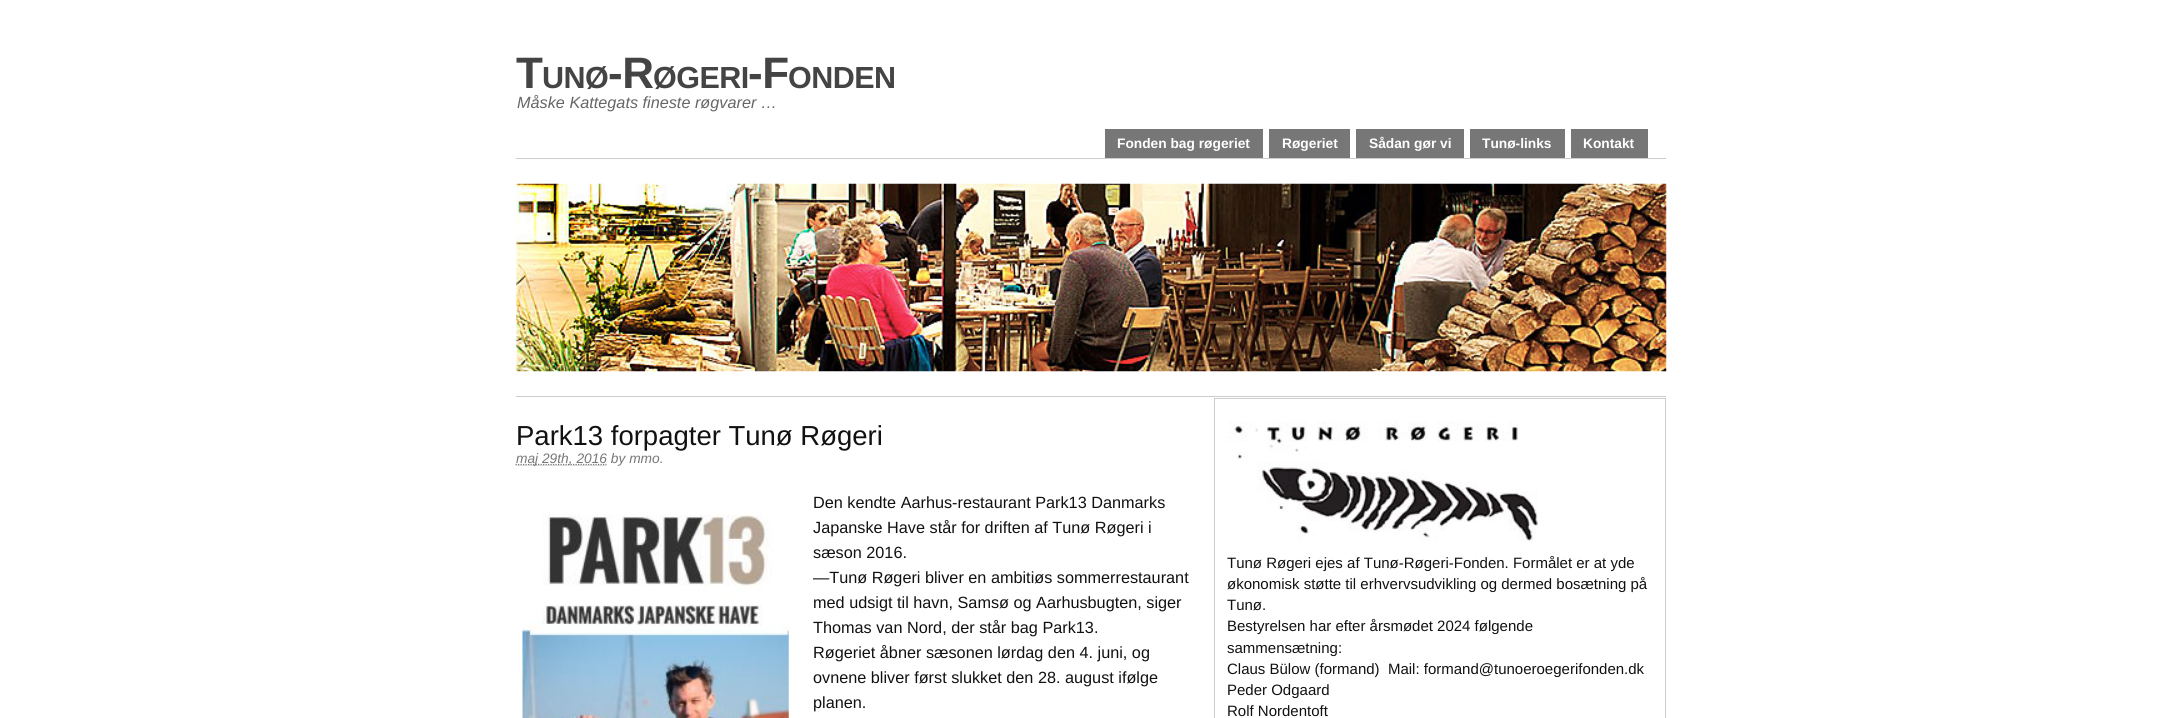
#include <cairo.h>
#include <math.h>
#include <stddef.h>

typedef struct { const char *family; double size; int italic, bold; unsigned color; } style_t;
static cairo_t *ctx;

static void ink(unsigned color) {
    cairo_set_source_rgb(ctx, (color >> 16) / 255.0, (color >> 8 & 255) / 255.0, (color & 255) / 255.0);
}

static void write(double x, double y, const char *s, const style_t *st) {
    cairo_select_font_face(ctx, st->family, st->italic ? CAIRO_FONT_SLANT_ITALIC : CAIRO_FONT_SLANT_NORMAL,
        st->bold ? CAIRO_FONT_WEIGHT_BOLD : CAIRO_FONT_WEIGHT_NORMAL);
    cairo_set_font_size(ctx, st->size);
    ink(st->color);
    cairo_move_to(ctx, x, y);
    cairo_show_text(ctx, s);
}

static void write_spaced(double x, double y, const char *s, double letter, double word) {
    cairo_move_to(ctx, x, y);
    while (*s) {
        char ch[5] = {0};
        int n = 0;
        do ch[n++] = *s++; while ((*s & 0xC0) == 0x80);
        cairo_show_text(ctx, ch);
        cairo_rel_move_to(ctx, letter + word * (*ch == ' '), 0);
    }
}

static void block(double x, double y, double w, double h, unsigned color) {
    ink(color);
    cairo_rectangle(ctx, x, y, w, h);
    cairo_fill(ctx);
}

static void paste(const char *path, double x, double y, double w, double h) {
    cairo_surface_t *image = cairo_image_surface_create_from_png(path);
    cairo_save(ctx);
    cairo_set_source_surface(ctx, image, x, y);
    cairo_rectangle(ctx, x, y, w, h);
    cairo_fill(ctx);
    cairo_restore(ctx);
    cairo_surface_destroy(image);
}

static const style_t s1 = {"Liberation Sans", 16.25, 1, 0, 0x666666};
static const style_t s2 = {"Liberation Sans", 13.75, 0, 1, 0xffffff};
static const style_t s3 = {"Liberation Sans", 27.5, 0, 0, 0x111111};
static const style_t s4 = {"Liberation Sans", 13.75, 1, 0, 0x777777};
static const style_t s5 = {"Liberation Sans", 16.25, 0, 0, 0x111111};
static const style_t s6 = {"Liberation Sans", 15, 0, 0, 0x111111};

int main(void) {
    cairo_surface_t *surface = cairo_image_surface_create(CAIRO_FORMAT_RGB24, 2183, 718);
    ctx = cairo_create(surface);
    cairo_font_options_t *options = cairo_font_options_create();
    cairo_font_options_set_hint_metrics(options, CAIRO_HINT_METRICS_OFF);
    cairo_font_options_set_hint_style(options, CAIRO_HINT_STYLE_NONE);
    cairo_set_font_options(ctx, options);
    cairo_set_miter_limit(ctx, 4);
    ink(0xffffff);
    cairo_paint(ctx);
    cairo_select_font_face(ctx, "Liberation Sans", CAIRO_FONT_SLANT_NORMAL, CAIRO_FONT_WEIGHT_BOLD);
    cairo_set_font_size(ctx, 44);
    ink(0x444444);
    write_spaced(516, 88, "T", -0.5, 0);
    cairo_set_font_size(ctx, 30.5);
    write_spaced(542, 88, "UNØ", -0.5, 0);
    cairo_set_font_size(ctx, 44);
    write_spaced(608, 88, "-R", -0.5, 0);
    cairo_set_font_size(ctx, 30.5);
    write_spaced(653, 88, "ØGERI", -0.5, 0);
    cairo_set_font_size(ctx, 44);
    write_spaced(748, 88, "-F", -0.5, 0);
    cairo_set_font_size(ctx, 30.5);
    write_spaced(788, 88, "ONDEN", -0.5, 0);
    write(517, 108, "Måske Kattegats fineste røgvarer …", &s1);
    block(1105, 129, 158, 29, 0x777777);
    write(1117, 148, "Fonden bag røgeriet", &s2);
    block(1269, 129, 81, 29, 0x777777);
    write(1282, 148, "Røgeriet", &s2);
    block(1356, 129, 108, 29, 0x777777);
    write(1369, 148, "Sådan gør vi", &s2);
    block(1470, 129, 95, 29, 0x777777);
    write(1482, 148, "Tunø-links", &s2);
    block(1571, 129, 77, 29, 0x777777);
    write(1583, 148, "Kontakt", &s2);
    block(516, 158, 1150, 1, 0xcccccc);
    block(516, 396, 1150, 1, 0xcccccc);
    paste("pic1.png", 516, 183, 1151, 189);
    write(516, 445, "Park13 forpagter Tunø Røgeri", &s3);
    block(516, 465, 90, 1, 0xdddddd);
    cairo_new_path(ctx);
    cairo_move_to(ctx, 515.5, 464.5);
    cairo_line_to(ctx, 606.5, 464.5);
    ink(0x777777);
    cairo_set_line_width(ctx, 1.2);
    cairo_set_dash(ctx, (double[]){1.25, 1.25}, 2, 0);
    cairo_stroke(ctx);
    write(516, 463, "maj 29th, 2016 by mmo.", &s4);
    paste("pic2.png", 522, 514, 267, 204);
    write(813, 508, "Den kendte Aarhus-restaurant Park13 Danmarks", &s5);
    write(813, 533, "Japanske Have står for driften af Tunø Røgeri i", &s5);
    write(813, 558, "sæson 2016.", &s5);
    write(813, 583, "—Tunø Røgeri bliver en ambitiøs sommerrestaurant", &s5);
    write(813, 608, "med udsigt til havn, Samsø og Aarhusbugten, siger", &s5);
    write(813, 633, "Thomas van Nord, der står bag Park13.", &s5);
    write(813, 658, "Røgeriet åbner sæsonen lørdag den 4. juni, og", &s5);
    write(813, 683, "ovnene bliver først slukket den 28. august ifølge", &s5);
    write(813, 708, "planen.", &s5);
    block(1214, 398, 452, 1, 0xcccccc);
    block(1665, 398, 1, 320, 0xcccccc);
    block(1214, 398, 1, 320, 0xcccccc);
    paste("pic3.png", 1227, 421, 311, 120);
    write(1227, 568, "Tunø Røgeri ejes af Tunø-Røgeri-Fonden. Formålet er at yde", &s6);
    write(1227, 589, "økonomisk støtte til erhvervsudvikling og dermed bosætning på", &s6);
    write(1227, 610, "Tunø.", &s6);
    write(1227, 631, "Bestyrelsen har efter årsmødet 2024 følgende", &s6);
    write(1227, 653, "sammensætning:", &s6);
    write(1227, 674, "Claus Bülow (formand)  Mail: formand@tunoeroegerifonden.dk", &s6);
    write(1227, 695, "Peder Odgaard", &s6);
    write(1227, 716, "Rolf Nordentoft", &s6);
    cairo_surface_write_to_png(surface, "screenshot.png");
    cairo_font_options_destroy(options);
    cairo_destroy(ctx);
    cairo_surface_destroy(surface);
    return 0;
}
